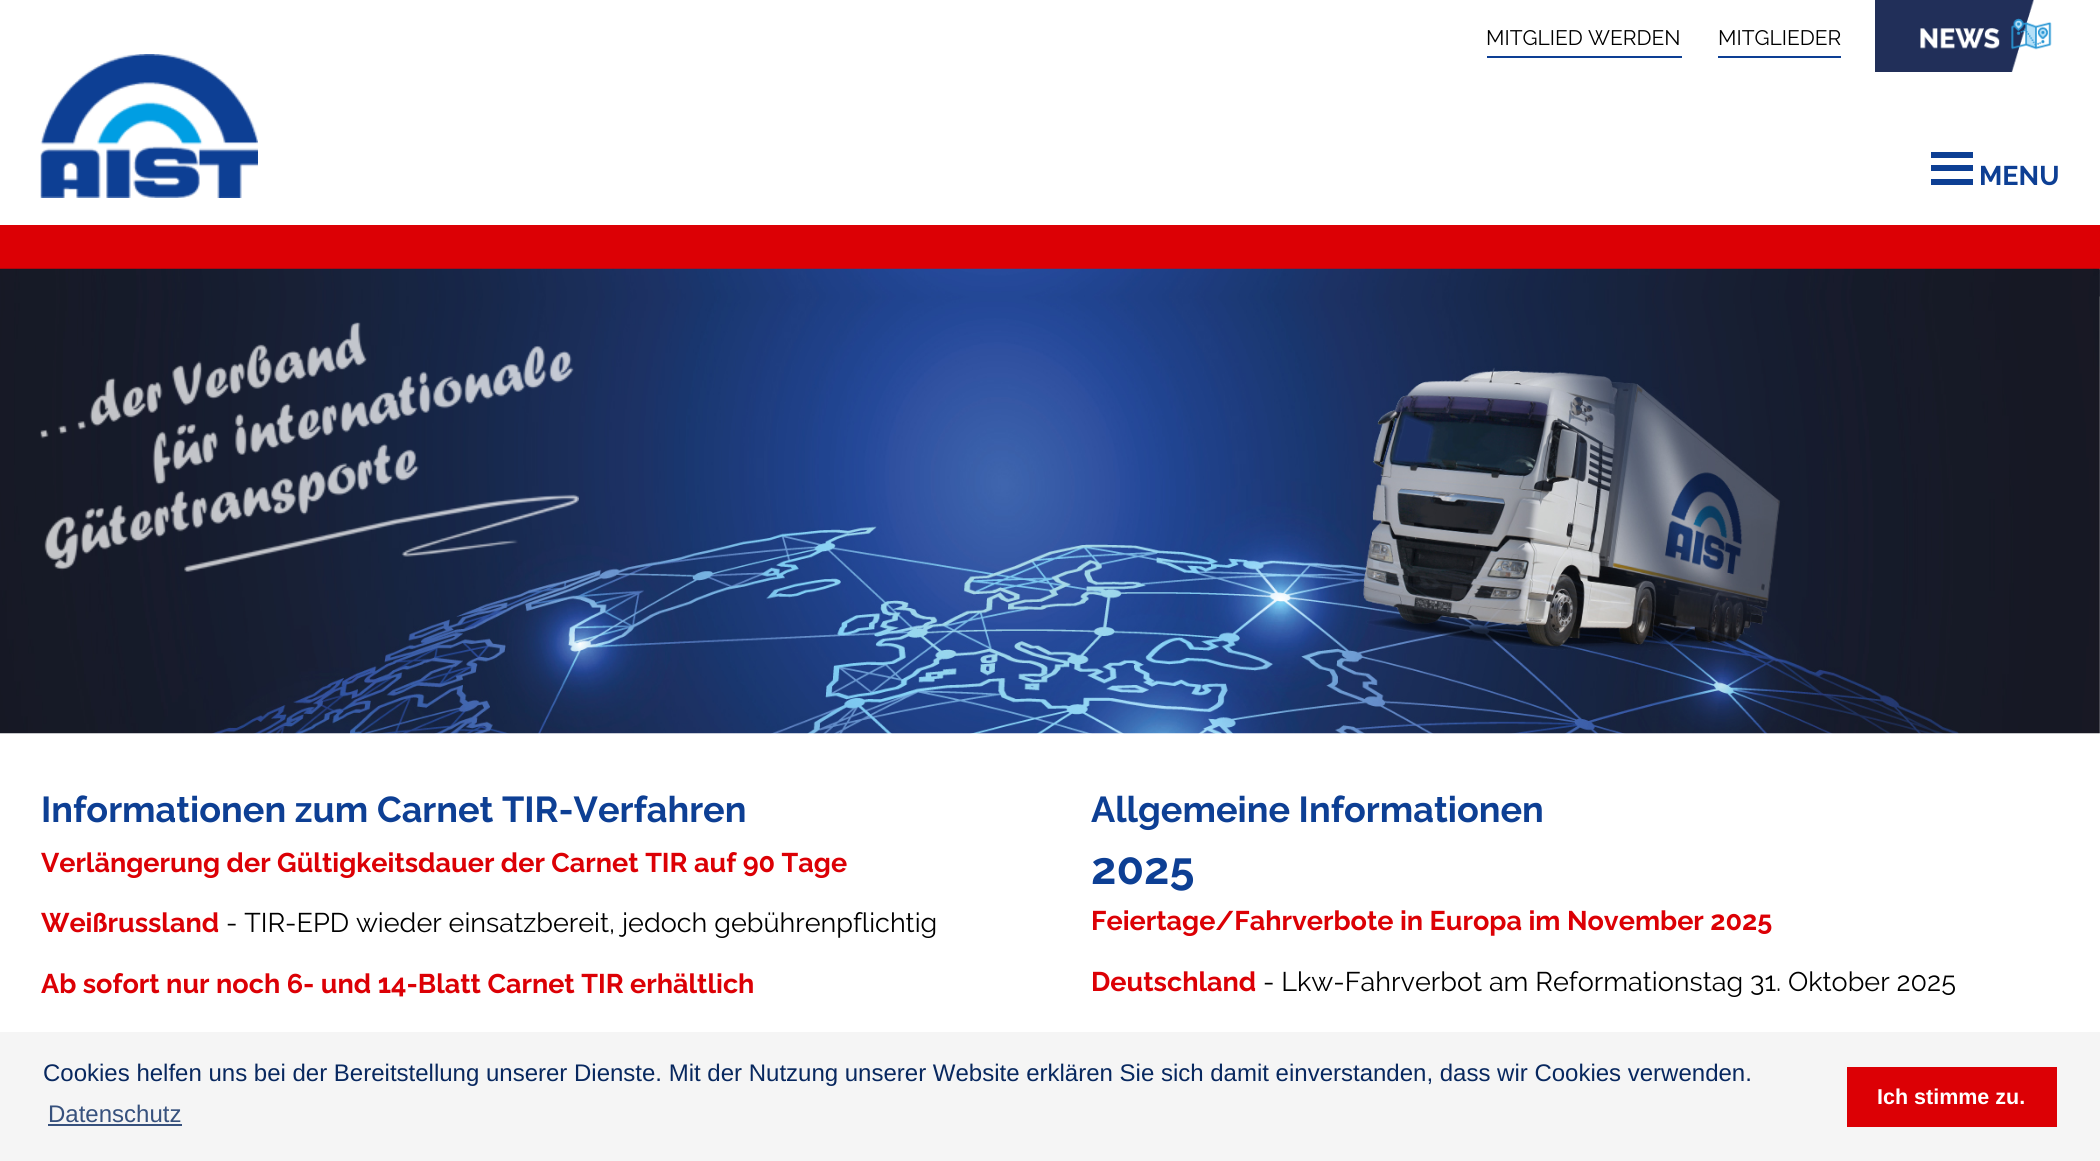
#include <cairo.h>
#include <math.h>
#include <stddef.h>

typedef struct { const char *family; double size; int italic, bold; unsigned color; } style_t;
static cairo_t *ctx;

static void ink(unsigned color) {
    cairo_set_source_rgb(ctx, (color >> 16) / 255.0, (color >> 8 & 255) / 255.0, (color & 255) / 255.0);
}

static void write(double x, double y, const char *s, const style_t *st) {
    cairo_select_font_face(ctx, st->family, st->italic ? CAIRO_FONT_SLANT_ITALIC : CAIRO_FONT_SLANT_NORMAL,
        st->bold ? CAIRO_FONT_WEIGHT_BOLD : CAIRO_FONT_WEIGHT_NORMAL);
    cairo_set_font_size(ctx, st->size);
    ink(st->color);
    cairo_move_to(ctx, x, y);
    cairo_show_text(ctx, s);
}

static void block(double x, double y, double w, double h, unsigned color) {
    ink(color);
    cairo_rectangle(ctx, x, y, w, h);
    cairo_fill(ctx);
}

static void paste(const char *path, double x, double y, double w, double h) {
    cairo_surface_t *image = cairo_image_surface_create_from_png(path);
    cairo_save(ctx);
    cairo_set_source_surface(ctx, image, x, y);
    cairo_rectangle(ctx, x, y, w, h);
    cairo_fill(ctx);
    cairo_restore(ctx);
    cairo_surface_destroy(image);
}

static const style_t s1 = {"Raleway", 21, 0, 0, 0x000000};
static const style_t s2 = {"Raleway", 27, 0, 1, 0x0d3f94};
static const style_t s3 = {"Raleway", 36, 0, 1, 0x0d3f94};
static const style_t s4 = {"Raleway", 27, 0, 1, 0xdc0005};
static const style_t s5 = {"Raleway", 27, 0, 0, 0x000000};
static const style_t s6 = {"Raleway", 45, 0, 1, 0x0d3f94};
static const style_t s7 = {"Liberation Sans", 24, 0, 0, 0x08285f};
static const style_t s8 = {"Liberation Sans", 24, 0, 0, 0x37517d};
static const style_t s9 = {"Liberation Sans", 21.5, 0, 1, 0xffffff};

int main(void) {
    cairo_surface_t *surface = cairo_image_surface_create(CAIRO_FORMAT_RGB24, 2100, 1161);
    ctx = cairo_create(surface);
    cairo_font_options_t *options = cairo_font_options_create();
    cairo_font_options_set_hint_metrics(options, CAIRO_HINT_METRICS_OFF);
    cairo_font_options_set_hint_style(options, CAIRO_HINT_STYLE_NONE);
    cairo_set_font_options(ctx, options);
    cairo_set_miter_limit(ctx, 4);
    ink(0xffffff);
    cairo_paint(ctx);
    block(0, 225, 2100, 44, 0xdc0005);
    paste("pic1.png", 40, 54, 218, 144);
    block(1487, 56, 195, 2, 0x0d3f94);
    write(1486, 45, "MITGLIED WERDEN", &s1);
    block(1718, 56, 123, 2, 0x0d3f94);
    write(1718, 45, "MITGLIEDER", &s1);
    paste("pic2.png", 1875, 0, 177, 72);
    block(1931, 165, 42, 6, 0x0d3f94);
    block(1931, 152, 42, 6, 0x0d3f94);
    block(1931, 179, 42, 6, 0x0d3f94);
    write(1979, 185, "MENU", &s2);
    paste("pic3.png", 0, 268, 2100, 466);
    paste("pic4.png", 40, 322, 539, 250);
    write(41, 822, "Informationen zum Carnet TIR-Verfahren", &s3);
    write(41, 872, "Verlängerung der Gültigkeitsdauer der Carnet TIR auf 90 Tage", &s4);
    write(41, 932, "Weißrussland", &s4);
    write(226, 932, "- TIR-EPD wieder einsatzbereit, jedoch gebührenpflichtig", &s5);
    write(41, 993, "Ab sofort nur noch 6- und 14-Blatt Carnet TIR erhältlich", &s4);
    write(1091, 822, "Allgemeine Informationen", &s3);
    write(1091, 884, "2025", &s6);
    write(1091, 930, "Feiertage/Fahrverbote in Europa im November 2025", &s4);
    write(1091, 991, "Deutschland", &s4);
    write(1263, 991, "- Lkw-Fahrverbot am Reformationstag 31. Oktober 2025", &s5);
    block(0, 1032, 2100, 129, 0xf5f5f5);
    write(43, 1081, "Cookies helfen uns bei der Bereitstellung unserer Dienste. Mit der Nutzung unserer Website erklären Sie sich damit einverstanden, dass wir Cookies verwenden.", &s7);
    write(48, 1122, "Datenschutz", &s8);
    block(48, 1124, 134, 2, 0x37517d);
    block(1847, 1067, 210, 60, 0xdc0005);
    write(1877, 1104, "Ich stimme zu.", &s9);
    cairo_surface_write_to_png(surface, "screenshot.png");
    cairo_font_options_destroy(options);
    cairo_destroy(ctx);
    cairo_surface_destroy(surface);
    return 0;
}
